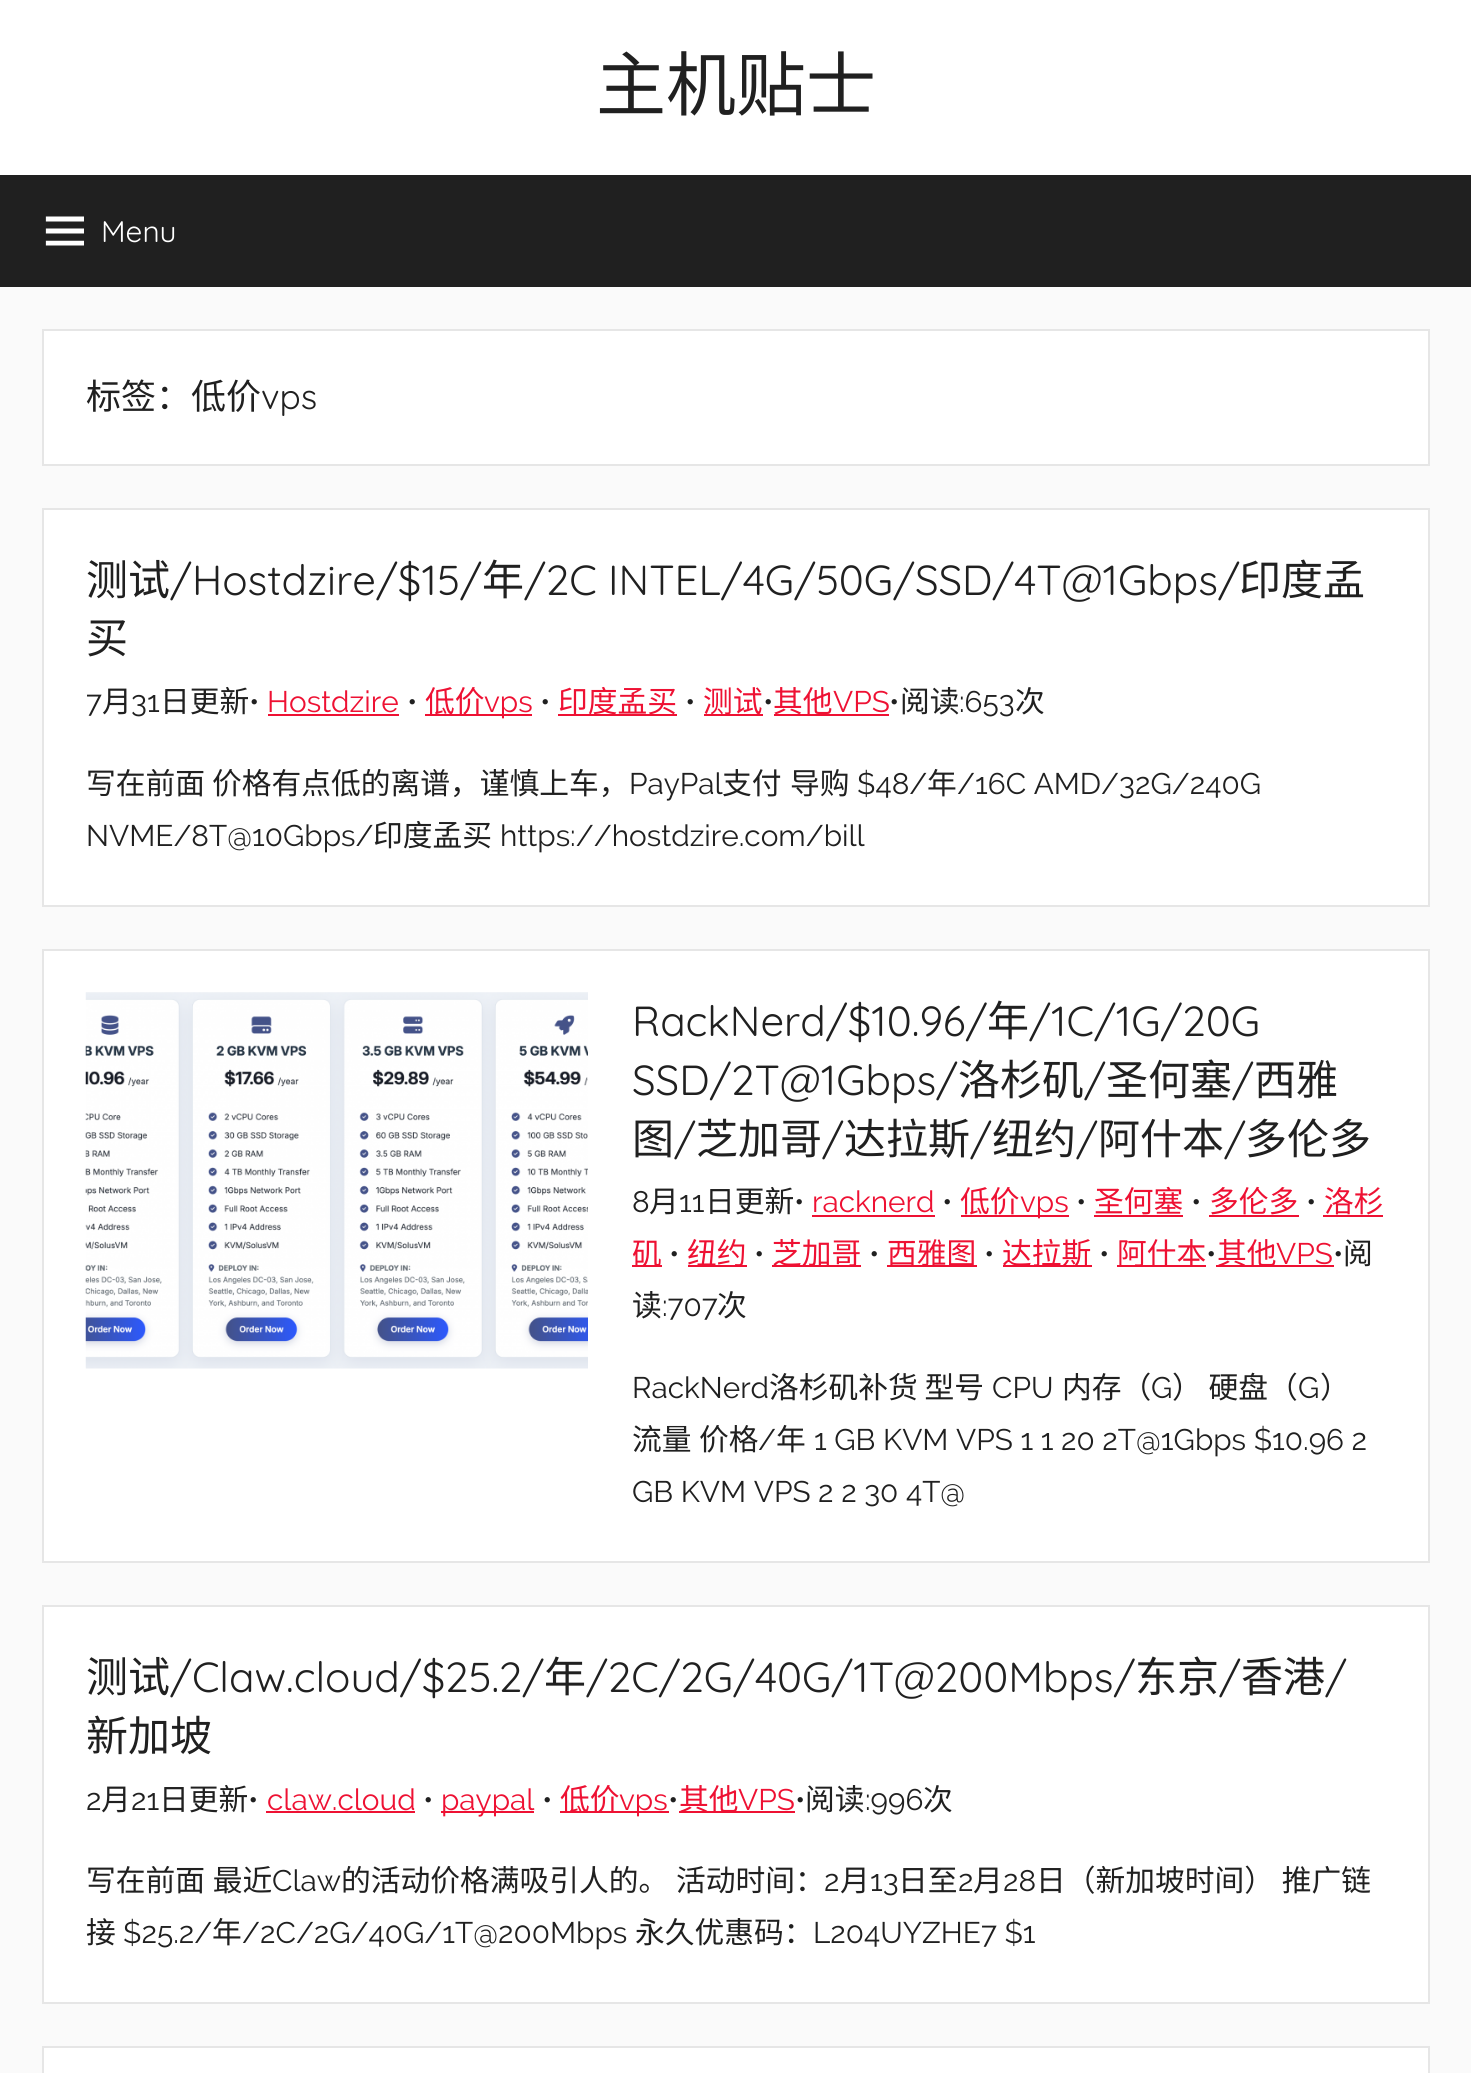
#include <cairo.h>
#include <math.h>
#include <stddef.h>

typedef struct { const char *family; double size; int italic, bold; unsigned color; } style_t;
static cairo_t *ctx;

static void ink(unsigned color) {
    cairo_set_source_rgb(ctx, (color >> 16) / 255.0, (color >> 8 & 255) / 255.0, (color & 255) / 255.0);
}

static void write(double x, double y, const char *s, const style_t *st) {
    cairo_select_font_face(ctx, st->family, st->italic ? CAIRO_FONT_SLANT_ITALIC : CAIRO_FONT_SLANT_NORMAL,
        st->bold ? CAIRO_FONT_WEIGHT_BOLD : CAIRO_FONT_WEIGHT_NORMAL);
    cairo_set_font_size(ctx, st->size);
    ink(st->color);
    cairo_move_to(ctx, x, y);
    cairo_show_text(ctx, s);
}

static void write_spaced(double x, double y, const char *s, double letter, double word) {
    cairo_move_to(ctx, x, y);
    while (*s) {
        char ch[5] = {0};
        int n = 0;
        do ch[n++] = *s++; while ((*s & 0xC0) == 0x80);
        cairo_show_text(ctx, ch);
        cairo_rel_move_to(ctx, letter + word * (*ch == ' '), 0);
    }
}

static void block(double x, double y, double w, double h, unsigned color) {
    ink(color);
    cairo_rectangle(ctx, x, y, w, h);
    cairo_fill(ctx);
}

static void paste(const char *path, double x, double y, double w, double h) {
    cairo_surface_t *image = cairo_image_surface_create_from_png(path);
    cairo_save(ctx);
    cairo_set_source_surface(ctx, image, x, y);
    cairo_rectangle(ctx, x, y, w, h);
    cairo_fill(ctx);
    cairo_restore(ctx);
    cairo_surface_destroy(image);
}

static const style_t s1 = {"Noto Sans CJK SC", 70, 0, 0, 0x202020};
static const style_t s2 = {"Quicksand", 29.75, 0, 0, 0xffffff};
static const style_t s3 = {"Noto Sans CJK SC", 35, 0, 0, 0x202020};
static const style_t s4 = {"Quicksand", 35, 0, 0, 0x202020};
static const style_t s5 = {"Noto Sans CJK SC", 42, 0, 0, 0x202020};
static const style_t s6 = {"Quicksand", 42, 0, 0, 0x202020};
static const style_t s7 = {"Raleway", 29.75, 0, 0, 0x202020};
static const style_t s8 = {"Noto Sans CJK SC", 29.75, 0, 0, 0x202020};
static const style_t s9 = {"Raleway", 29.75, 0, 0, 0xee1133};
static const style_t s10 = {"Noto Sans CJK SC", 29.75, 0, 0, 0xee1133};

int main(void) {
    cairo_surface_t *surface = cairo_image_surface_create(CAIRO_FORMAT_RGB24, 1471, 2073);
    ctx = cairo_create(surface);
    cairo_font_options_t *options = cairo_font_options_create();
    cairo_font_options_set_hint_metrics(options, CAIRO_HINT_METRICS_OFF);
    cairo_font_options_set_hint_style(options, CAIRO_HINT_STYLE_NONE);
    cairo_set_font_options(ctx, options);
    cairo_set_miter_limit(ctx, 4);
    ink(0xfafafa);
    cairo_paint(ctx);
    block(0, 0, 1471, 175, 0xffffff);
    write(596, 110, "主机贴士", &s1);
    block(0, 175, 1471, 112, 0x202020);
    paste("pic1.png", 45, 216, 39, 30);
    write(101, 242, "Menu", &s2);
    cairo_rectangle(ctx, 43, 330, 1386, 135);
    cairo_fill_preserve(ctx);
    ink(0xe6e6e6);
    cairo_stroke(ctx);
    write(86, 409, "标签：低价", &s3);
    write(261, 409, "vps", &s4);
    ink(0xffffff);
    cairo_rectangle(ctx, 43, 509, 1386, 397);
    cairo_fill_preserve(ctx);
    ink(0xe6e6e6);
    cairo_stroke(ctx);
    write(86, 595, "测试", &s5);
    write(170, 595, "/Hostdzire/$15/", &s6);
    write(482, 595, "年", &s5);
    write(524, 595, "/2C INTEL/4G/50G/SSD/4T@1Gbps/", &s6);
    write(1239, 595, "印度孟", &s5);
    write(86, 653, "买", &s5);
    write(86, 712, "7", &s7);
    write(102, 712, "月", &s8);
    write(131, 712, "31", &s7);
    write(160, 712, "日更新", &s8);
    write(249, 712, "•", &s7);
    write(267, 712, "Hostdzire", &s9);
    block(268, 714, 131, 2, 0xee1133);
    write(407, 712, "•", &s7);
    block(425, 714, 107, 2, 0xee1133);
    write(425, 712, "低价", &s10);
    write(484, 712, "vps", &s9);
    write(540, 712, "•", &s7);
    block(558, 714, 119, 2, 0xee1133);
    write(558, 712, "印度孟买", &s10);
    write(685, 712, "•", &s7);
    block(704, 714, 59, 2, 0xee1133);
    write(703, 712, "测试", &s10);
    write(763, 712, "•", &s7);
    block(774, 714, 115, 2, 0xee1133);
    write(773, 712, "其他", &s10);
    write(833, 712, "VPS", &s9);
    write(889, 712, "•", &s7);
    write(900, 712, "阅读", &s8);
    write(959, 712, ":653", &s7);
    write(1015, 712, "次", &s8);
    write(86, 794, "写在前面", &s8);
    write(212, 794, "价格有点低的离谱，谨慎上车，", &s8);
    write(629, 794, "PayPal", &s7);
    write(722, 794, "支付", &s8);
    write(790, 794, "导购", &s8);
    write(857, 794, "$48/", &s7);
    write(927, 794, "年", &s8);
    write(957, 794, "/16C AMD/32G/240G", &s7);
    write(86, 846, "NVME/8T@10Gbps/", &s7);
    write(373, 846, "印度孟买", &s8);
    write(500, 846, "https://hostdzire.com/bill", &s7);
    ink(0xffffff);
    cairo_rectangle(ctx, 43, 950, 1386, 612);
    cairo_fill_preserve(ctx);
    ink(0xe6e6e6);
    cairo_stroke(ctx);
    paste("pic2.png", 85, 992, 503, 377);
    write(632, 1036, "RackNerd/$10.96/", &s6);
    write(987, 1036, "年", &s5);
    write(1029, 1036, "/1C/1G/20G", &s6);
    write(632, 1095, "SSD/2T@1Gbps/", &s6);
    write(958, 1095, "洛杉矶", &s5);
    write(1084, 1095, "/", &s6);
    write(1106, 1095, "圣何塞", &s5);
    write(1232, 1095, "/", &s6);
    write(1254, 1095, "西雅", &s5);
    write(632, 1154, "图", &s5);
    write(674, 1154, "/", &s6);
    write(696, 1154, "芝加哥", &s5);
    write(822, 1154, "/", &s6);
    write(844, 1154, "达拉斯", &s5);
    write(970, 1154, "/", &s6);
    write(992, 1154, "纽约", &s5);
    write(1076, 1154, "/", &s6);
    write(1098, 1154, "阿什本", &s5);
    write(1224, 1154, "/", &s6);
    write(1245, 1154, "多伦多", &s5);
    write(632, 1212, "8", &s7);
    write(649, 1212, "月", &s8);
    write(679, 1212, "11", &s7);
    write(705, 1212, "日更新", &s8);
    write(794, 1212, "•", &s7);
    write(812, 1212, "racknerd", &s9);
    block(812, 1215, 123, 2, 0xee1133);
    write(942, 1212, "•", &s7);
    write(960, 1212, "低价", &s10);
    block(961, 1215, 108, 2, 0xee1133);
    write(1020, 1212, "vps", &s9);
    write(1076, 1212, "•", &s7);
    write(1094, 1212, "圣何塞", &s10);
    block(1094, 1215, 89, 2, 0xee1133);
    write(1191, 1212, "•", &s7);
    write(1209, 1212, "多伦多", &s10);
    block(1209, 1215, 90, 2, 0xee1133);
    write(1306, 1212, "•", &s7);
    write(1324, 1212, "洛杉", &s10);
    block(1323, 1215, 60, 2, 0xee1133);
    block(632, 1265, 30, 2, 0xee1133);
    write(632, 1264, "矶", &s10);
    write(669, 1264, "•", &s7);
    block(688, 1265, 59, 2, 0xee1133);
    write(687, 1264, "纽约", &s10);
    write(754, 1264, "•", &s7);
    block(772, 1265, 89, 2, 0xee1133);
    write(772, 1264, "芝加哥", &s10);
    write(869, 1264, "•", &s7);
    block(887, 1265, 90, 2, 0xee1133);
    write(887, 1264, "西雅图", &s10);
    write(984, 1264, "•", &s7);
    block(1003, 1265, 89, 2, 0xee1133);
    write(1002, 1264, "达拉斯", &s10);
    write(1099, 1264, "•", &s7);
    block(1117, 1265, 89, 2, 0xee1133);
    write(1117, 1264, "阿什本", &s10);
    write(1206, 1264, "•", &s7);
    block(1216, 1265, 118, 2, 0xee1133);
    write(1217, 1264, "其他", &s10);
    write(1276, 1264, "VPS", &s9);
    write(1333, 1264, "•", &s7);
    write(1343, 1264, "阅", &s8);
    write(632, 1316, "读", &s8);
    write(662, 1316, ":707", &s7);
    write(717, 1316, "次", &s8);
    write(632, 1398, "RackNerd", &s7);
    write(769, 1398, "洛杉矶补货 型号", &s8);
    write(992, 1398, "CPU", &s7);
    write(1062, 1398, "内存（", &s8);
    write(1151, 1398, "G", &s7);
    write(1172, 1398, "） 硬盘（", &s8);
    write(1298, 1398, "G", &s7);
    write(1320, 1398, "）", &s8);
    write(632, 1450, "流量", &s8);
    write(699, 1450, "价格", &s8);
    write(758, 1450, "/", &s7);
    write(776, 1450, "年", &s8);
    write(814, 1450, "1 GB KVM VPS 1 1 20 2T@1Gbps $10.96 2", &s7);
    write(632, 1502, "GB KVM VPS 2 2 30 4T@", &s7);
    ink(0xffffff);
    cairo_rectangle(ctx, 43, 1606, 1386, 397);
    cairo_fill_preserve(ctx);
    ink(0xe6e6e6);
    cairo_stroke(ctx);
    write(86, 1692, "测试", &s5);
    write(170, 1692, "/Claw.cloud/$25.2/", &s6);
    write(544, 1692, "年", &s5);
    write(586, 1692, "/2C/2G/40G/1T@200Mbps/", &s6);
    write(1135, 1692, "东京", &s5);
    write(1219, 1692, "/", &s6);
    write(1241, 1692, "香港", &s5);
    write(1325, 1692, "/", &s6);
    write(86, 1751, "新加坡", &s5);
    write(86, 1810, "2", &s7);
    write(101, 1810, "月", &s8);
    write(131, 1810, "21", &s7);
    write(159, 1810, "日更新", &s8);
    write(248, 1810, "•", &s7);
    write(267, 1810, "claw.cloud", &s9);
    block(266, 1811, 149, 2, 0xee1133);
    write(423, 1810, "•", &s7);
    block(441, 1811, 93, 2, 0xee1133);
    write(441, 1810, "paypal", &s9);
    write(542, 1810, "•", &s7);
    block(560, 1811, 109, 2, 0xee1133);
    write(560, 1810, "低价", &s10);
    write(619, 1810, "vps", &s9);
    write(668, 1810, "•", &s7);
    block(679, 1811, 116, 2, 0xee1133);
    write(679, 1810, "其他", &s10);
    write(738, 1810, "VPS", &s9);
    write(795, 1810, "•", &s7);
    write(805, 1810, "阅读", &s8);
    write(865, 1810, ":996", &s7);
    write(923, 1810, "次", &s8);
    write_spaced(86, 1891, "写在前面 最近", 0, 1);
    write(272, 1891, "Claw", &s7);
    cairo_select_font_face(ctx, "Noto Sans CJK SC", CAIRO_FONT_SLANT_NORMAL, CAIRO_FONT_WEIGHT_NORMAL);
    write_spaced(341, 1891, "的活动价格满吸引人的。 活动时间：", 0, 1);
    write(824, 1891, "2", &s7);
    write(840, 1891, "月", &s8);
    write(870, 1891, "13", &s7);
    write(898, 1891, "日至", &s8);
    write(958, 1891, "2", &s7);
    write(973, 1891, "月", &s8);
    write(1003, 1891, "28", &s7);
    cairo_select_font_face(ctx, "Noto Sans CJK SC", CAIRO_FONT_SLANT_NORMAL, CAIRO_FONT_WEIGHT_NORMAL);
    write_spaced(1036, 1891, "日（新加坡时间） 推广链", 0, 1);
    write(86, 1943, "接", &s8);
    write(123, 1943, "$25.2/", &s7);
    write(212, 1943, "年", &s8);
    write(242, 1943, "/2C/2G/40G/1T@200Mbps", &s7);
    write(635, 1943, "永久优惠码：", &s8);
    write(813, 1943, "L204UYZHE7 $1", &s7);
    ink(0xffffff);
    cairo_rectangle(ctx, 43, 2047, 1386, 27);
    cairo_fill_preserve(ctx);
    ink(0xe6e6e6);
    cairo_stroke(ctx);
    cairo_surface_write_to_png(surface, "screenshot.png");
    cairo_font_options_destroy(options);
    cairo_destroy(ctx);
    cairo_surface_destroy(surface);
    return 0;
}
